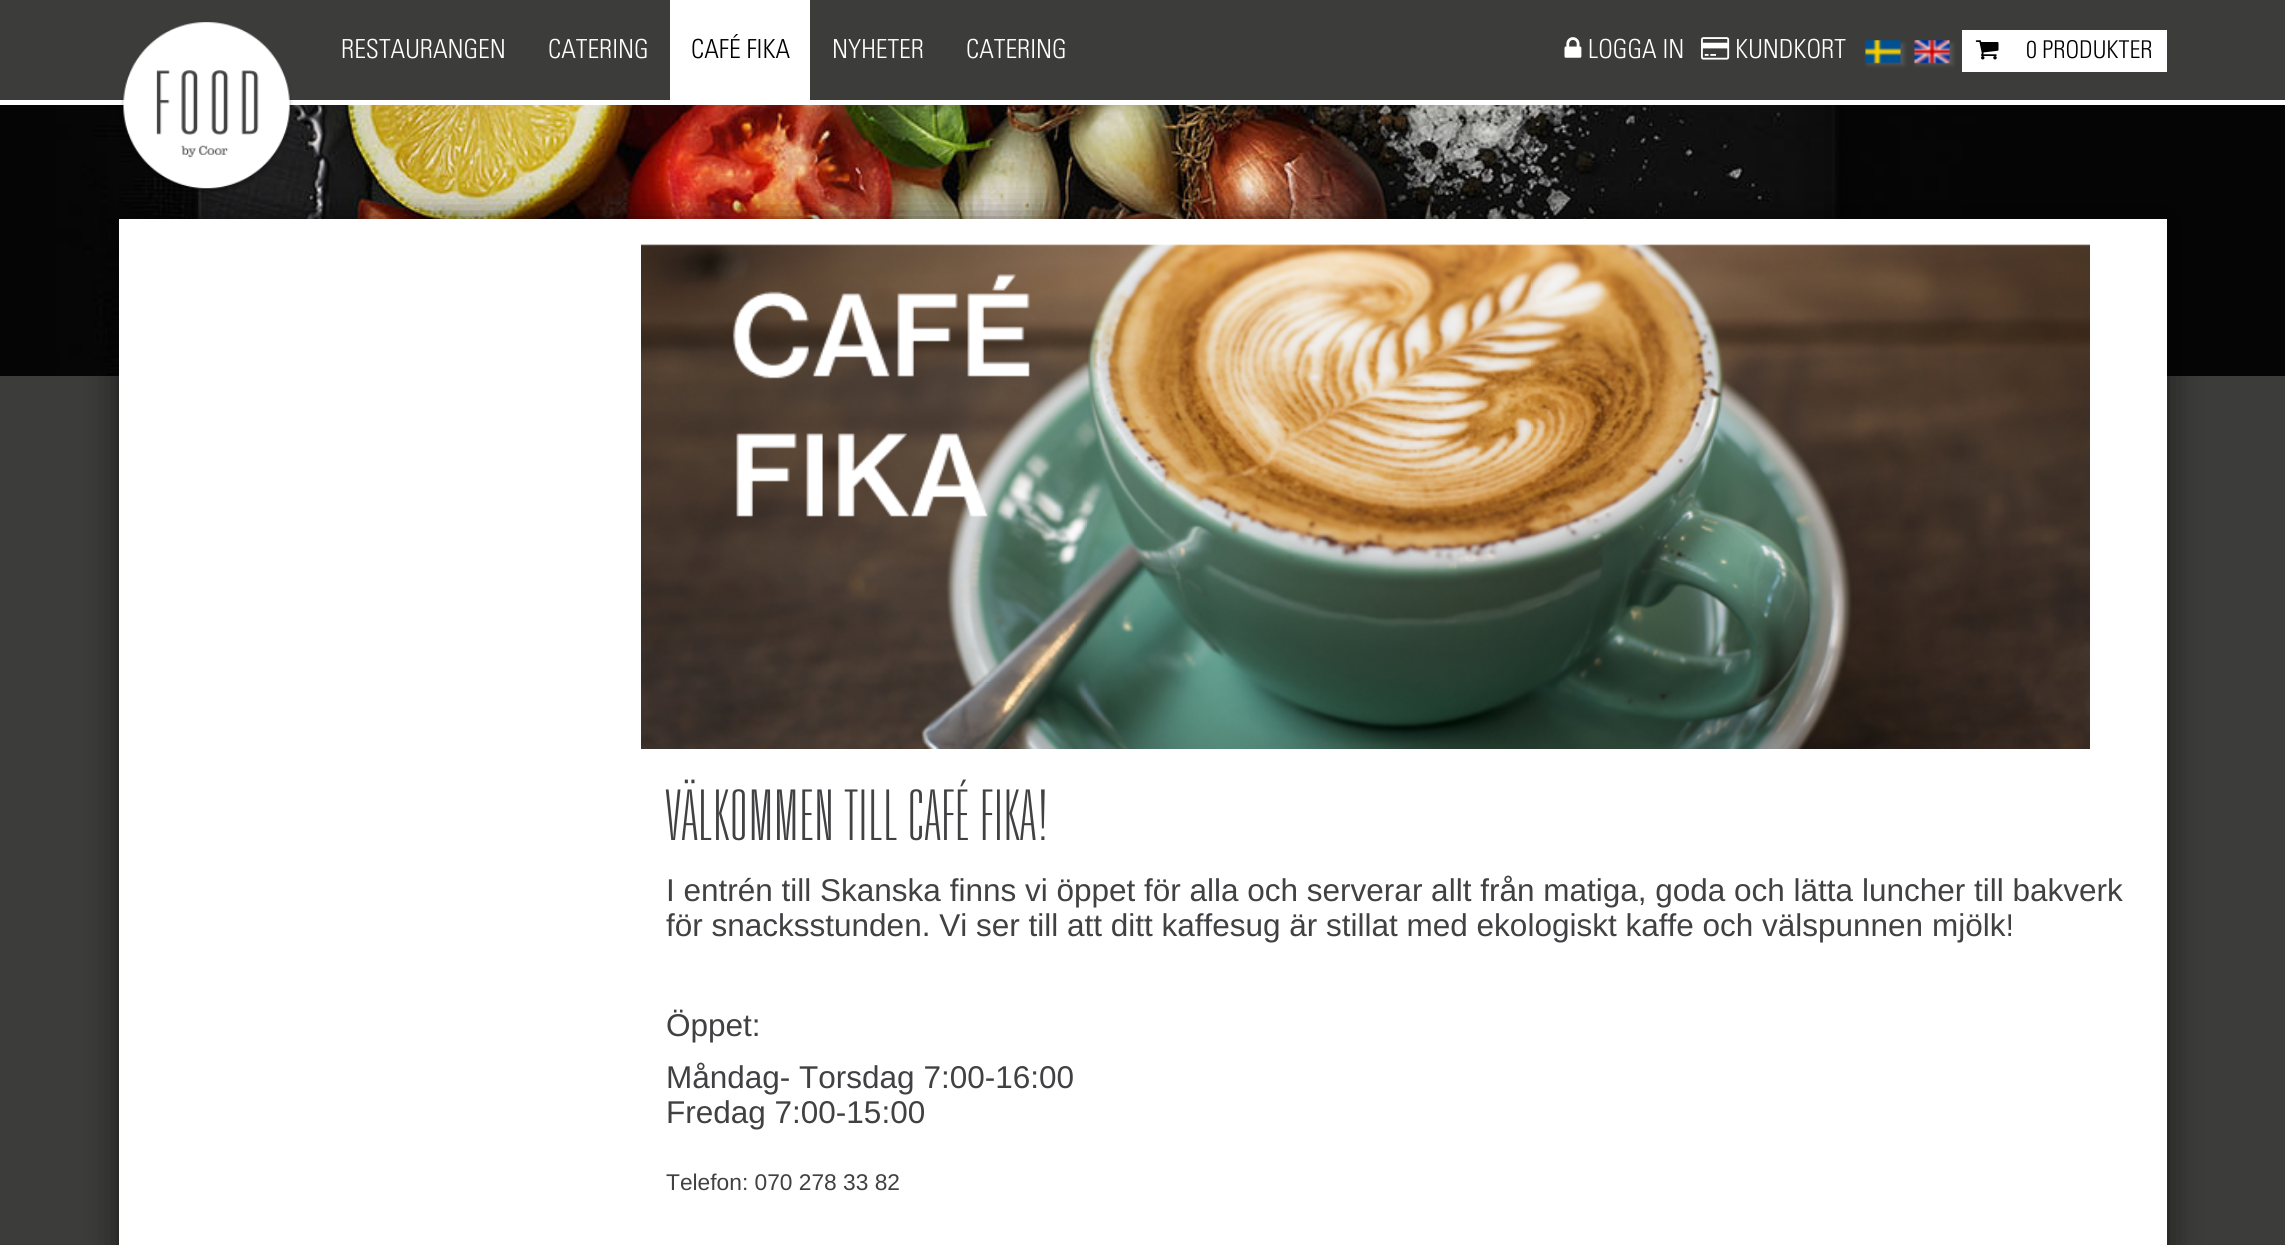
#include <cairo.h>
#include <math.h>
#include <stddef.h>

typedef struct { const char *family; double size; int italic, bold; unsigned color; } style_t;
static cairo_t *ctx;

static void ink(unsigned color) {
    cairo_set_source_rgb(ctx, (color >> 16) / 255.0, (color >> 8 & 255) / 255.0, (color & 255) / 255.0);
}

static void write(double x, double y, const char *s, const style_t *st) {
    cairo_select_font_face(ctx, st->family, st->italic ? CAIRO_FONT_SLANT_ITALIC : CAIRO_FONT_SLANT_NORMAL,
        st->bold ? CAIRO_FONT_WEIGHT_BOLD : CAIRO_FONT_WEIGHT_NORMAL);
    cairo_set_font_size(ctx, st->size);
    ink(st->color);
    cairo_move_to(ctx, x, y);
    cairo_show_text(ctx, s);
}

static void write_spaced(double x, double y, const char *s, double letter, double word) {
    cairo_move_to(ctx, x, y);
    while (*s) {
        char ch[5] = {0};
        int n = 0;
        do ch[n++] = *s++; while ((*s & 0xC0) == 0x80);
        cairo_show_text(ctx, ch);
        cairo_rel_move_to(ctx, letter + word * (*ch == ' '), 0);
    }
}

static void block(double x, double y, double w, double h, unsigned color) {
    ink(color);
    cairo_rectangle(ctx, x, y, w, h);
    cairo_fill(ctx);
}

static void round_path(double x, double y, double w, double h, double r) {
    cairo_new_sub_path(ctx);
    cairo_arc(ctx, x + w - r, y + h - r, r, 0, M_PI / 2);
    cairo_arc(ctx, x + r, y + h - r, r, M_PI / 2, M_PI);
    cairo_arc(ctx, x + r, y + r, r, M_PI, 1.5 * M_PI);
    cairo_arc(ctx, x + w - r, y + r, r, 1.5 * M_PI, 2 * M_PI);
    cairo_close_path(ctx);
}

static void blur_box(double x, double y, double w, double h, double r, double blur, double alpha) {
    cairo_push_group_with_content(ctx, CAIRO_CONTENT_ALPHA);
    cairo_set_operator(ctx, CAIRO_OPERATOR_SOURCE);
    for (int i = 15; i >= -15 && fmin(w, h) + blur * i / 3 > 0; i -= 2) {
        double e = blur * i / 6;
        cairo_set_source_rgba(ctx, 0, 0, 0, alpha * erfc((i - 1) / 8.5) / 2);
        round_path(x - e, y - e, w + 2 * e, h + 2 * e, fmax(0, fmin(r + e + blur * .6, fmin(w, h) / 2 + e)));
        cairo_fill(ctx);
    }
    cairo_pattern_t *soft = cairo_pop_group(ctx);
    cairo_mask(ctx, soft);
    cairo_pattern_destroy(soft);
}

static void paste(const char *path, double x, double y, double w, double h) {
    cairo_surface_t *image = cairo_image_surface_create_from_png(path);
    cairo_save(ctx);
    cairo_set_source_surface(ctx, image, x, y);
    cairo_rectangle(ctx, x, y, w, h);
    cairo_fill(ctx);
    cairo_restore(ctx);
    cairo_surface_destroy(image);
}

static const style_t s1 = {"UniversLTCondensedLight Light", 26.25, 0, 0, 0xffffff};
static const style_t s2 = {"UniversLTCondensedLight Light", 26.25, 0, 0, 0x000000};
static const style_t s3 = {"UniversLTCondensedLight Light", 24.5, 0, 0, 0x000000};
static const style_t s4 = {"Liberation Sans", 31.5, 0, 0, 0x414042};
static const style_t s5 = {"Liberation Sans", 22.75, 0, 0, 0x414042};

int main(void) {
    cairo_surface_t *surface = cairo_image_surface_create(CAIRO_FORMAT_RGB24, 2285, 1245);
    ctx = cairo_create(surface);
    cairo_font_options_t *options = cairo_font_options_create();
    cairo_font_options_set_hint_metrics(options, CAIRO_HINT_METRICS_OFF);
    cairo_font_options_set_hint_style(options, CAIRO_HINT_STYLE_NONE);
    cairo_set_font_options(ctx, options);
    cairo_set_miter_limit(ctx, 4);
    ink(0x3c3c3b);
    cairo_paint(ctx);
    block(0, 100, 2285, 5, 0xffffff);
    paste("pic7.png", 0, 105, 2285, 271);
    ink(0x000000);
    blur_box(119, 219, 2048, 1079, 0, 17.5, 0.6);
    paste("pic1.png", 120, 22, 173, 171);
    write(341, 58, "RESTAURANGEN", &s1);
    write(548, 58, "CATERING", &s1);
    block(670, 0, 140, 100, 0xffffff);
    write(691, 58, "CAFÉ FIKA", &s2);
    write(832, 58, "NYHETER", &s1);
    write(966, 58, "CATERING", &s1);
    paste("pic2.png", 1564, 37, 18, 21);
    write(1588, 58, "LOGGA IN", &s1);
    paste("pic3.png", 1701, 37, 29, 23);
    write(1735, 58, "KUNDKORT", &s1);
    ink(0x555555);
    blur_box(1867, 44, 37, 21, 0, 2, 1);
    paste("pic4.png", 1865, 40, 36, 24);
    blur_box(1916, 44, 37, 21, 0, 2, 1);
    paste("pic5.png", 1914, 40, 36, 24);
    block(1962, 30, 205, 42, 0xffffff);
    paste("pic6.png", 1975, 40, 24, 20);
    write(2026, 58, "0 PRODUKTER", &s3);
    block(119, 219, 2048, 1026, 0xffffff);
    paste("pic8.png", 641, 244, 1449, 505);
    cairo_select_font_face(ctx, "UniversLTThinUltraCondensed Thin", CAIRO_FONT_SLANT_NORMAL, CAIRO_FONT_WEIGHT_NORMAL);
    cairo_set_font_size(ctx, 70);
    ink(0x414042);
    write_spaced(666, 840, "VÄLKOMMEN TILL CAFÉ FIKA!", 2.1, 0);
    write(666, 901, "I entrén till Skanska finns vi öppet för alla och serverar allt från matiga, goda och lätta luncher till bakverk", &s4);
    write(666, 936, "för snacksstunden. Vi ser till att ditt kaffesug är stillat med ekologiskt kaffe och välspunnen mjölk!", &s4);
    write(666, 1036, "Öppet:", &s4);
    write(666, 1088, "Måndag- Torsdag 7:00-16:00", &s4);
    write(666, 1123, "Fredag 7:00-15:00", &s4);
    write(666, 1190, "Telefon: 070 278 33 82", &s5);
    cairo_surface_write_to_png(surface, "screenshot.png");
    cairo_font_options_destroy(options);
    cairo_destroy(ctx);
    cairo_surface_destroy(surface);
    return 0;
}
